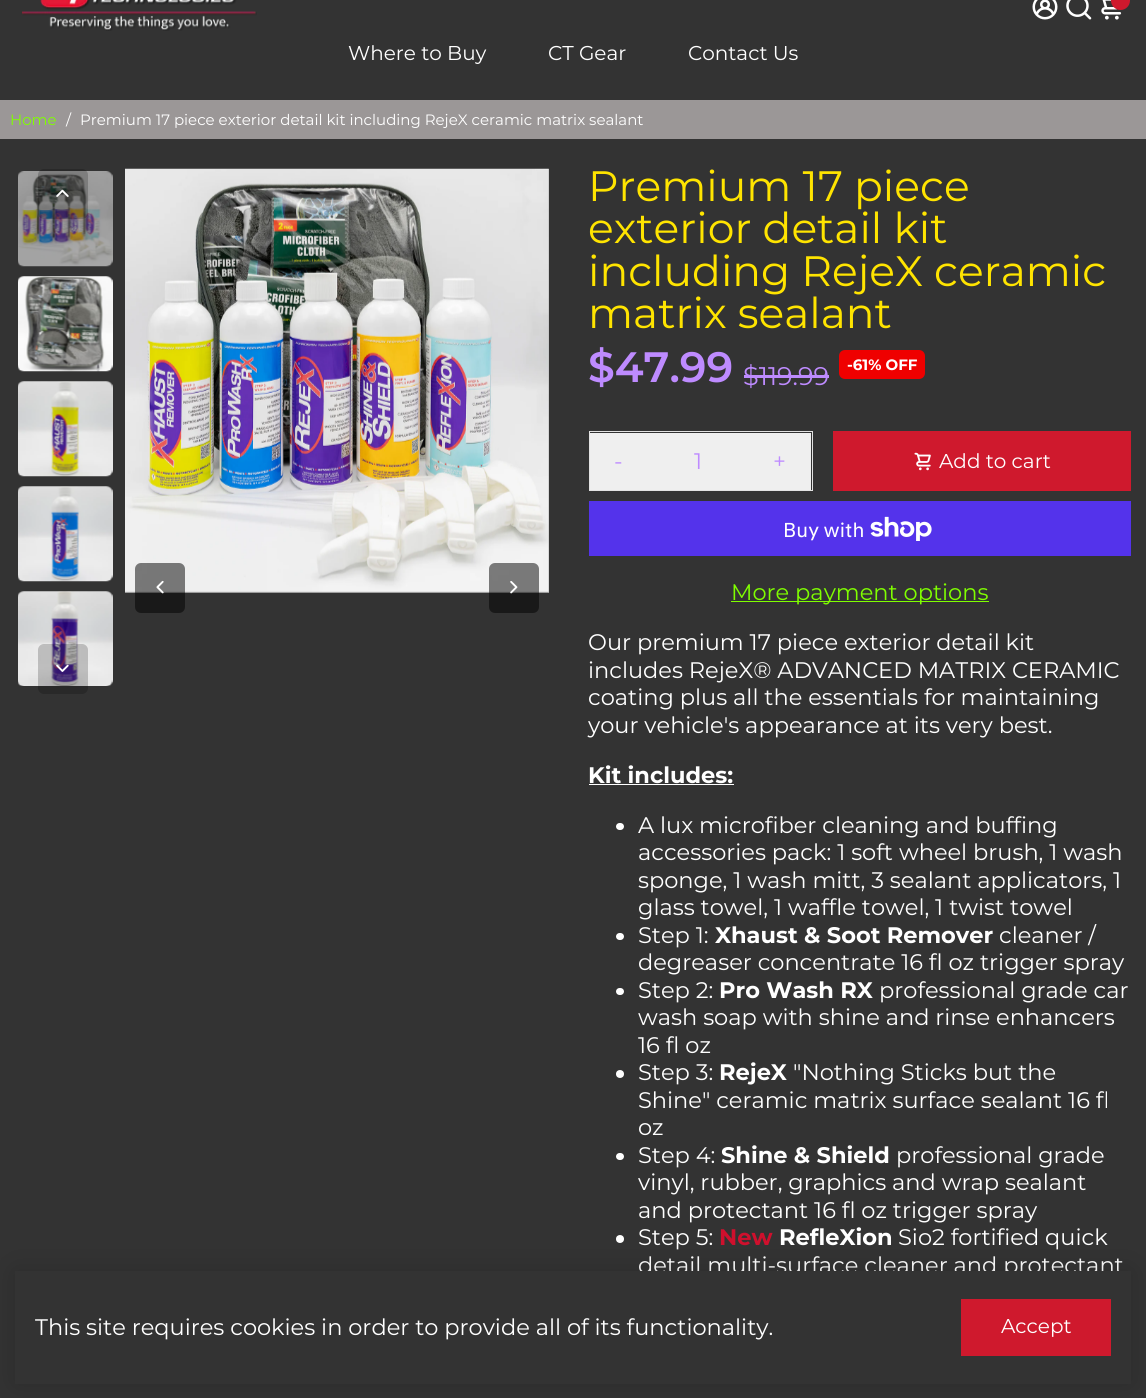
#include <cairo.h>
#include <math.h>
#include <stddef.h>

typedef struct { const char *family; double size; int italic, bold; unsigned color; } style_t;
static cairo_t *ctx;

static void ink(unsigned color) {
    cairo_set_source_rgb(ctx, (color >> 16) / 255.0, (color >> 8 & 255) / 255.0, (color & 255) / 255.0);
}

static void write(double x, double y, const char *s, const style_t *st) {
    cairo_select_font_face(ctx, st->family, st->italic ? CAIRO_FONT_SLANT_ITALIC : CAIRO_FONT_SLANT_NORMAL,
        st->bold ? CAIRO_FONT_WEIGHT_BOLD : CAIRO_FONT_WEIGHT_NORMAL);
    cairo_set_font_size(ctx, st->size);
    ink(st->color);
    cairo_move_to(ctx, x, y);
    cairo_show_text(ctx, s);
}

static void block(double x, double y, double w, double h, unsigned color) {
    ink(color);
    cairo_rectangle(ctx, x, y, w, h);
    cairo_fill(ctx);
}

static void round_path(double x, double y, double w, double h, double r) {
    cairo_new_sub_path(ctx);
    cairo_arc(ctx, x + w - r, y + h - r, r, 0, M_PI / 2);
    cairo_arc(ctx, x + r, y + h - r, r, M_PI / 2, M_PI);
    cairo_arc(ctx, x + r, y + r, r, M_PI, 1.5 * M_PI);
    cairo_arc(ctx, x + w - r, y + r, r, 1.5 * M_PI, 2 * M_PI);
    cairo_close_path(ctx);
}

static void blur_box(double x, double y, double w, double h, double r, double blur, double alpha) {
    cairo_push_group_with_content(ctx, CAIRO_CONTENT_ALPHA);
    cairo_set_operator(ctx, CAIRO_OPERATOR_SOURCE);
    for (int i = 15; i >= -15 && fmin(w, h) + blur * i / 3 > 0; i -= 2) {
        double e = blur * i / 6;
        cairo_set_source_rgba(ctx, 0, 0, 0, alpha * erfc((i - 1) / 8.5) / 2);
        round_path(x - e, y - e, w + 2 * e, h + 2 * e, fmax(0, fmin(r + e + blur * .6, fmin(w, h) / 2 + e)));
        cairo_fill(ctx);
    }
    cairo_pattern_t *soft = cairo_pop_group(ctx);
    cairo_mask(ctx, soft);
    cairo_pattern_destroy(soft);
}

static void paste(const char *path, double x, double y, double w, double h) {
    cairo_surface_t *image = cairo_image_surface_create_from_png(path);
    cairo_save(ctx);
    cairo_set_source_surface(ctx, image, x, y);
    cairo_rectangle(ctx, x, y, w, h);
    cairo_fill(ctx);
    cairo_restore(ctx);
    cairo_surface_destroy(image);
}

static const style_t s1 = {"Montserrat", 20, 0, 0, 0xffffff};
static const style_t s2 = {"Montserrat", 15, 0, 0, 0x80ff00};
static const style_t s3 = {"Montserrat", 15, 0, 0, 0xffffff};
static const style_t s4 = {"Montserrat", 42.5, 0, 0, 0xffe400};
static const style_t s5 = {"Montserrat SemiBold", 42.5, 0, 0, 0xbe8bff};
static const style_t s6 = {"Montserrat", 25.5, 0, 0, 0xbe8bff};
static const style_t s7 = {"Montserrat", 15, 0, 1, 0xffffff};
static const style_t s8 = {"Montserrat", 22.5, 0, 0, 0xbe8bff};
static const style_t s9 = {"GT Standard", 20, 0, 0, 0xffffff};
static const style_t s10 = {"Montserrat", 22.5, 0, 0, 0x80ff00};
static const style_t s11 = {"Montserrat", 22.5, 0, 0, 0xffffff};
static const style_t s12 = {"Montserrat", 22.5, 0, 1, 0xffffff};
static const style_t s13 = {"Montserrat", 22.5, 0, 1, 0xcf102d};

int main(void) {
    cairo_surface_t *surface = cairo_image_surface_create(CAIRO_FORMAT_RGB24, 1146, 1398);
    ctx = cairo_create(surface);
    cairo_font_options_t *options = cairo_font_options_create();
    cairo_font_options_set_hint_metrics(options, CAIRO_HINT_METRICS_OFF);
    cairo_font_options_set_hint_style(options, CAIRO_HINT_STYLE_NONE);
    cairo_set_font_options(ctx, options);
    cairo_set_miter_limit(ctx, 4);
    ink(0x333333);
    cairo_paint(ctx);
    paste("pic1.png", 21, 0, 236, 31);
    paste("pic2.png", 1032, 0, 26, 20);
    paste("pic3.png", 1066, 0, 26, 20);
    paste("pic4.png", 1101, 0, 21, 20);
    ink(0xcf192d);
    round_path(1111, -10, 19, 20, 9.5);
    cairo_fill(ctx);
    write(348, 60, "Where to Buy", &s1);
    write(548, 60, "CT Gear", &s1);
    write(688, 60, "Contact Us", &s1);
    block(0, 100, 1146, 39, 0x9b9797);
    write(10, 125, "Home", &s2);
    write(66, 125, "/", &s3);
    write(80, 125, "Premium 17 piece exterior detail kit including RejeX ceramic matrix sealant", &s3);
    paste("pic10.png", 18, 171, 95, 96);
    cairo_set_source_rgba(ctx, 0, 0, 0, 0.2);
    round_path(38, 169, 50, 50, 6);
    cairo_fill(ctx);
    paste("pic5.png", 56, 189, 13, 8);
    paste("pic6.png", 125, 168, 424, 425);
    paste("pic7.png", 548, 169, 1, 424);
    cairo_set_source_rgba(ctx, 0, 0, 0, 0.5);
    round_path(135, 563, 50, 50, 6);
    cairo_fill(ctx);
    paste("pic8.png", 156, 580, 8, 14);
    round_path(489, 563, 50, 50, 6);
    cairo_fill(ctx);
    paste("pic9.png", 510, 581, 8, 13);
    paste("pic11.png", 18, 276, 95, 96);
    paste("pic12.png", 18, 381, 95, 96);
    paste("pic13.png", 18, 486, 95, 96);
    paste("pic14.png", 18, 591, 95, 95);
    cairo_set_source_rgba(ctx, 0, 0, 0, 0.2);
    round_path(38, 644, 50, 50, 6);
    cairo_fill(ctx);
    paste("pic15.png", 56, 664, 13, 8);
    write(588, 201, "Premium 17 piece", &s4);
    write(588, 243, "exterior detail kit", &s4);
    write(588, 286, "including RejeX ceramic", &s4);
    write(588, 328, "matrix sealant", &s4);
    write(588, 382, "$47.99", &s5);
    write(743, 385, "$119.99", &s6);
    block(744, 375, 85, 3, 0xbe8bff);
    ink(0xef0000);
    round_path(839, 350, 86, 29, 6);
    cairo_fill(ctx);
    write(847, 370, "-61% OFF", &s7);
    cairo_rectangle(ctx, 589.5, 431.5, 223, 59);
    ink(0xe2e2e2);
    cairo_set_line_width(ctx, 1);
    cairo_stroke(ctx);
    block(590, 433, 221, 57, 0xefefef);
    write(614, 469, "-", &s8);
    write(694, 469, "1", &s8);
    write(773, 469, "+", &s8);
    block(833, 431, 298, 60, 0xcf192d);
    paste("pic16.png", 914, 452, 17, 19);
    write(939, 468, "Add to cart", &s1);
    block(589, 501, 542, 55, 0x5433eb);
    write(783, 537, "Buy with", &s9);
    paste("pic17.png", 870, 516, 62, 25);
    block(731, 601, 258, 1, 0x80ff00);
    write(731, 600, "More payment options", &s10);
    write(588, 650, "Our premium 17 piece exterior detail kit", &s11);
    write(588, 678, "includes RejeX® ADVANCED MATRIX CERAMIC", &s11);
    write(588, 705, "coating plus all the essentials for maintaining", &s11);
    write(588, 733, "your vehicle's appearance at its very best.", &s11);
    write(588, 783, "Kit includes:", &s12);
    block(589, 784, 145, 1, 0xffffff);
    round_path(616, 823, 8, 7, 3.5);
    cairo_fill(ctx);
    write(638, 833, "A lux microfiber cleaning and buffing", &s11);
    write(638, 860, "accessories pack: 1 soft wheel brush, 1 wash", &s11);
    write(638, 888, "sponge, 1 wash mitt, 3 sealant applicators, 1", &s11);
    write(638, 915, "glass towel, 1 waffle towel, 1 twist towel", &s11);
    round_path(616, 933, 8, 7, 3.5);
    cairo_fill(ctx);
    write(638, 943, "Step 1:", &s11);
    write(715, 943, "Xhaust & Soot Remover", &s12);
    write(999, 943, "cleaner /", &s11);
    write(638, 970, "degreaser concentrate 16 fl oz trigger spray", &s11);
    round_path(616, 988, 8, 7, 3.5);
    cairo_fill(ctx);
    write(638, 998, "Step 2:", &s11);
    write(719, 998, "Pro Wash RX", &s12);
    write(879, 998, "professional grade car", &s11);
    write(638, 1025, "wash soap with shine and rinse enhancers", &s11);
    write(638, 1053, "16 fl oz", &s11);
    cairo_new_path(ctx);
    cairo_arc(ctx, 620, 1074, 4, 0, 2 * M_PI);
    cairo_fill(ctx);
    write(638, 1080, "Step 3:", &s11);
    write(719, 1080, "RejeX", &s12);
    write(793, 1080, "\"Nothing Sticks but the", &s11);
    write(638, 1108, "Shine\" ceramic matrix surface sealant 16 fl", &s11);
    write(638, 1135, "oz", &s11);
    round_path(616, 1153, 8, 7, 3.5);
    cairo_fill(ctx);
    write(638, 1163, "Step 4:", &s11);
    write(721, 1163, "Shine & Shield", &s12);
    write(896, 1163, "professional grade", &s11);
    write(638, 1190, "vinyl, rubber, graphics and wrap sealant", &s11);
    write(638, 1218, "and protectant 16 fl oz trigger spray", &s11);
    cairo_new_path(ctx);
    cairo_arc(ctx, 620, 1239, 4, 0, 2 * M_PI);
    cairo_fill(ctx);
    write(638, 1245, "Step 5:", &s11);
    write(719, 1245, "New", &s13);
    write(779, 1245, "RefleXion", &s12);
    write(898, 1245, "Sio2 fortified quick", &s11);
    write(638, 1273, "detail multi-surface cleaner and protectant", &s11);
    ink(0x000000);
    blur_box(15, 1271, 1116, 113, 0, 15, 0.16);
    block(15, 1271, 1116, 113, 0x333333);
    write(35, 1335, "This site requires cookies in order to provide all of its functionality.", &s11);
    block(961, 1299, 150, 57, 0xcf192d);
    write(1001, 1333, "Accept", &s1);
    cairo_surface_write_to_png(surface, "screenshot.png");
    cairo_font_options_destroy(options);
    cairo_destroy(ctx);
    cairo_surface_destroy(surface);
    return 0;
}
